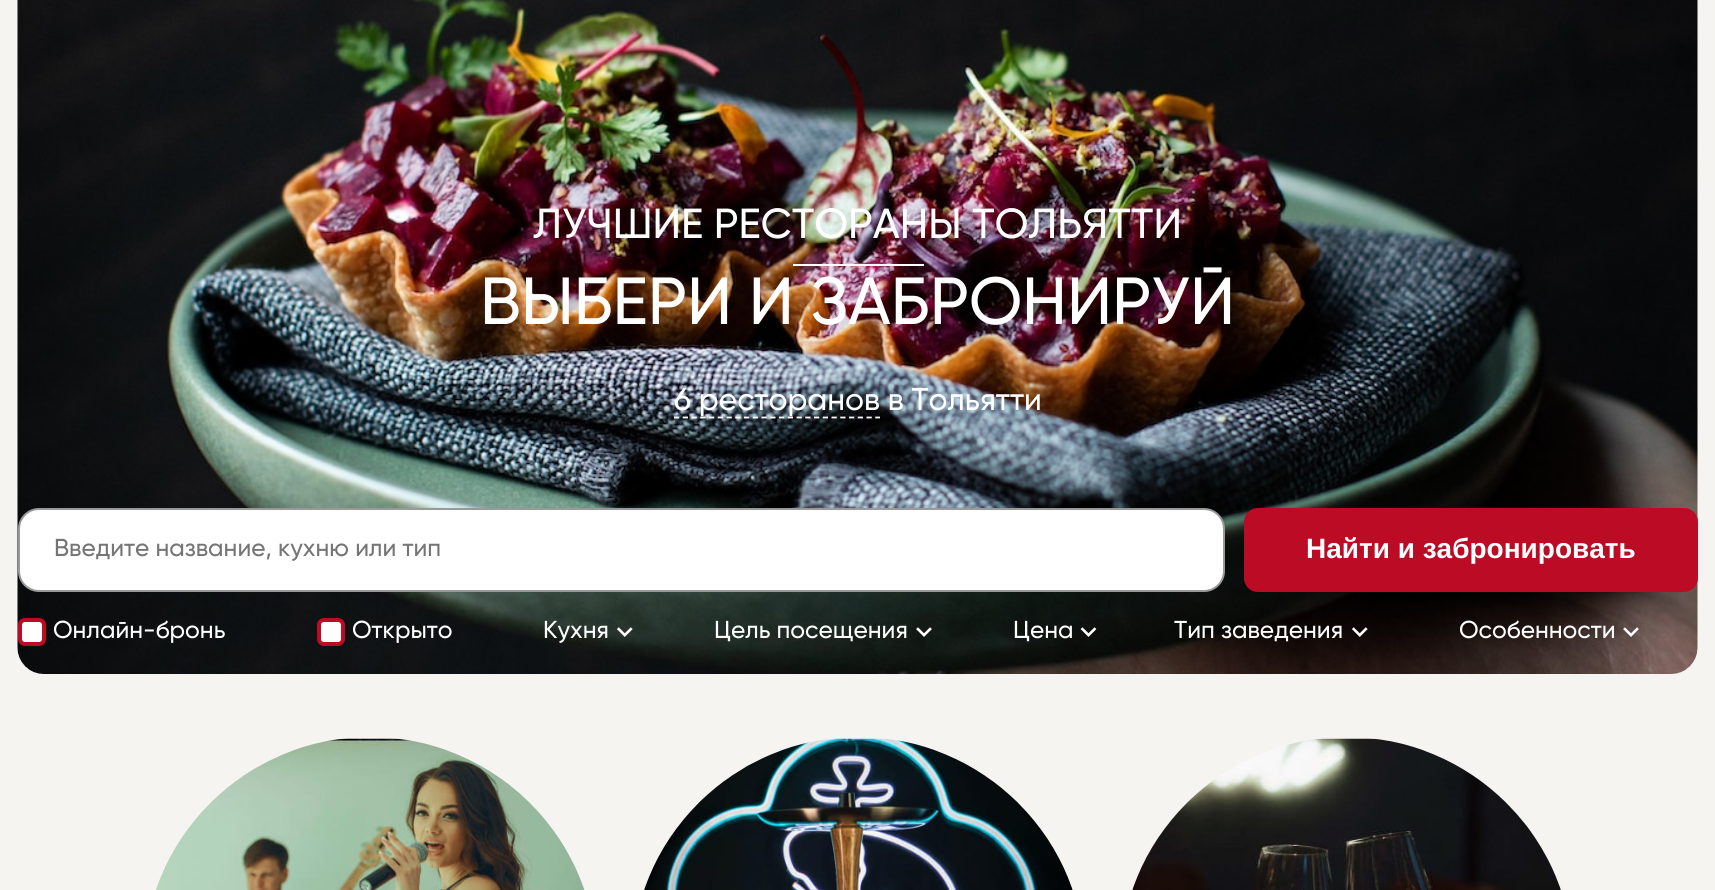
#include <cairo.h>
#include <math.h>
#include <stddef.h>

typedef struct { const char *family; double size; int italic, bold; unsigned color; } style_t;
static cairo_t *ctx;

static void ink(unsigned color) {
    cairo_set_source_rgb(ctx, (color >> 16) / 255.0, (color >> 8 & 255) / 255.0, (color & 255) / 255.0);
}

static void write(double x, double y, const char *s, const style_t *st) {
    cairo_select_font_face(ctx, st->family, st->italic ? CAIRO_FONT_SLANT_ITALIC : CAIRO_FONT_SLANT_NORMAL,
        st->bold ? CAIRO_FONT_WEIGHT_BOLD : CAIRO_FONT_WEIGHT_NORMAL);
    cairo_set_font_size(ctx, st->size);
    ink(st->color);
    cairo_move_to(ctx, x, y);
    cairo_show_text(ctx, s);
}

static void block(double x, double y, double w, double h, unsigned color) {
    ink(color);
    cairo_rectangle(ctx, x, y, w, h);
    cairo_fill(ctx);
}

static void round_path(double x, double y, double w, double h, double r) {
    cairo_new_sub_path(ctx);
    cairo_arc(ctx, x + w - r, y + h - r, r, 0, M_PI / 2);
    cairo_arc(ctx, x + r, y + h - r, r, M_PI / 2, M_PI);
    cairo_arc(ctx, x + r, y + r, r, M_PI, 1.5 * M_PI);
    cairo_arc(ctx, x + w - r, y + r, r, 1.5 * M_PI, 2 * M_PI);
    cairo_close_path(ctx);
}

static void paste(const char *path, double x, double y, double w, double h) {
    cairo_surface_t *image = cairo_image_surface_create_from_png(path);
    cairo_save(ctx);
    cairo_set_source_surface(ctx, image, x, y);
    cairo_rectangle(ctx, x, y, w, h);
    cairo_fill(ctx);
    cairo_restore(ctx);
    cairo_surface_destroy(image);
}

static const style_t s1 = {"Gilroy Medium", 42, 0, 0, 0xffffff};
static const style_t s2 = {"Gilroy Medium", 66.5, 0, 0, 0xffffff};
static const style_t s3 = {"Gilroy Medium", 31.5, 0, 0, 0xffffff};
static const style_t s4 = {"Gilroy Medium", 24.5, 0, 0, 0x757575};
static const style_t s5 = {"Liberation Sans", 28, 0, 1, 0xffffff};
static const style_t s6 = {"Gilroy Medium", 24.5, 0, 0, 0xffffff};

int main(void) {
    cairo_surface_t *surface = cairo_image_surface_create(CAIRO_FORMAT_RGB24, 1715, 890);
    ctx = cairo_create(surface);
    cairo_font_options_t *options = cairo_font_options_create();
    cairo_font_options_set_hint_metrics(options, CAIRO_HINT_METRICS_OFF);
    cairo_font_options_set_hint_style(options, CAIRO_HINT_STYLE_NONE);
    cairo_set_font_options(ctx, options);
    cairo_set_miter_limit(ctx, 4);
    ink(0xf6f4f1);
    cairo_paint(ctx);
    paste("pic1.png", 17, 0, 1681, 674);
    write(533, 238, "ЛУЧШИЕ РЕСТОРАНЫ ТОЛЬЯТТИ", &s1);
    block(793, 264, 131, 2, 0xffffff);
    write(480, 324, "ВЫБЕРИ И ЗАБРОНИРУЙ", &s2);
    cairo_new_path(ctx);
    cairo_move_to(ctx, 674, 417.5);
    cairo_line_to(ctx, 880, 417.5);
    cairo_set_line_width(ctx, 1.8);
    cairo_set_dash(ctx, (double[]){5.25, 3.5}, 2, 0);
    cairo_stroke(ctx);
    write(674, 410, "6 ресторанов в Тольятти", &s3);
    round_path(19, 509, 1205, 82, 20);
    cairo_fill_preserve(ctx);
    ink(0x999999);
    cairo_set_line_width(ctx, 2);
    cairo_set_dash(ctx, NULL, 0, 0);
    cairo_stroke(ctx);
    write(54, 556, "Введите название, кухню или тип", &s4);
    ink(0xbc0b25);
    round_path(1244, 508, 454, 84, 14);
    cairo_fill(ctx);
    write(1306, 558, "Найти и забронировать", &s5);
    round_path(20, 620, 24, 24, 5);
    cairo_fill_preserve(ctx);
    ink(0xbc0b25);
    cairo_set_line_width(ctx, 4);
    cairo_stroke(ctx);
    write(53, 638, "Онлайн-бронь", &s6);
    round_path(319, 620, 24, 24, 5);
    cairo_fill_preserve(ctx);
    ink(0xbc0b25);
    cairo_stroke(ctx);
    write(352, 638, "Открыто", &s6);
    write(543, 638, "Кухня", &s6);
    paste("pic2.png", 617, 627, 16, 10);
    write(714, 638, "Цель посещения", &s6);
    paste("pic3.png", 916, 627, 16, 10);
    write(1013, 638, "Цена", &s6);
    paste("pic4.png", 1080, 627, 17, 10);
    write(1174, 638, "Тип заведения", &s6);
    paste("pic5.png", 1352, 627, 16, 10);
    write(1459, 638, "Особенности", &s6);
    paste("pic6.png", 1623, 627, 16, 10);
    paste("pic7.png", 156, 738, 429, 152);
    paste("pic8.png", 644, 738, 429, 152);
    paste("pic9.png", 1132, 738, 429, 152);
    cairo_surface_write_to_png(surface, "screenshot.png");
    cairo_font_options_destroy(options);
    cairo_destroy(ctx);
    cairo_surface_destroy(surface);
    return 0;
}
